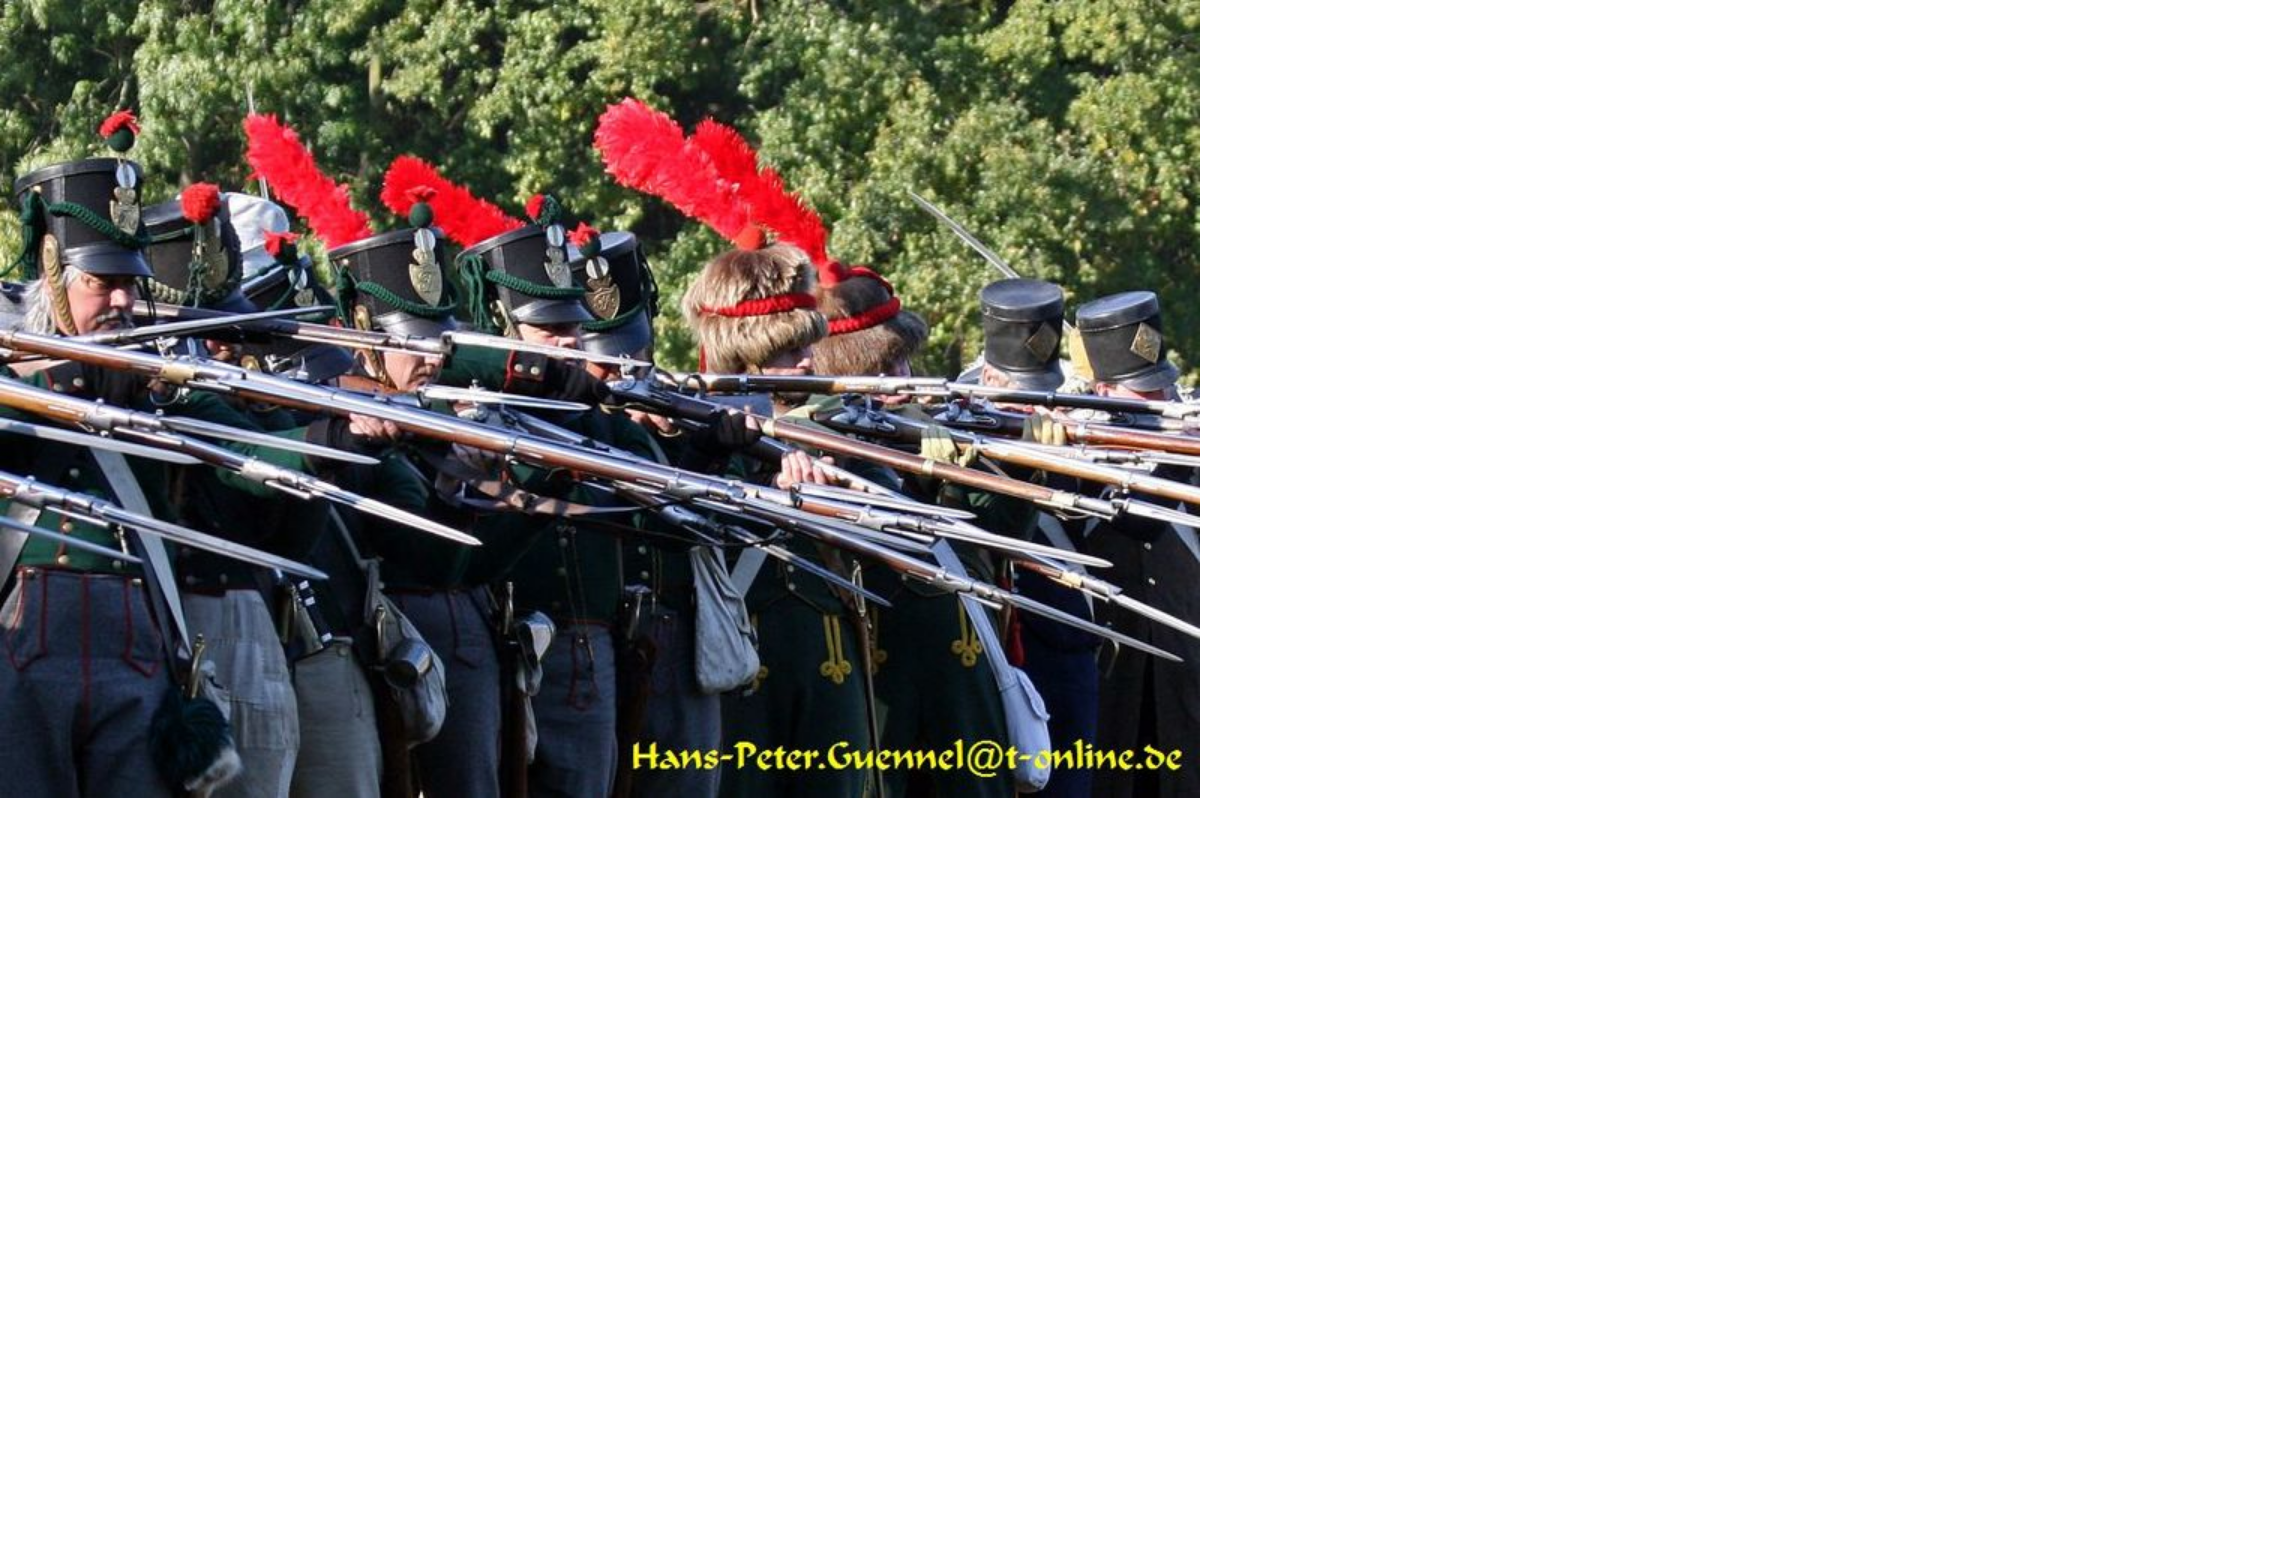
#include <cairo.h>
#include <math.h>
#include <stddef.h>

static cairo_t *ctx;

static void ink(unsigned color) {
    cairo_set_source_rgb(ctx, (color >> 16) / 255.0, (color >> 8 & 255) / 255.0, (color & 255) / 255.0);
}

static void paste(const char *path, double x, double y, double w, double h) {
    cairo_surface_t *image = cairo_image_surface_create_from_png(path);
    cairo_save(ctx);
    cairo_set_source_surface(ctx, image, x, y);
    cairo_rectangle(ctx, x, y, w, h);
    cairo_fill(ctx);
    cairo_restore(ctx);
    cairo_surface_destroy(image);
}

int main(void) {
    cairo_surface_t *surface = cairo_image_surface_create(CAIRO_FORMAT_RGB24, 2283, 1547);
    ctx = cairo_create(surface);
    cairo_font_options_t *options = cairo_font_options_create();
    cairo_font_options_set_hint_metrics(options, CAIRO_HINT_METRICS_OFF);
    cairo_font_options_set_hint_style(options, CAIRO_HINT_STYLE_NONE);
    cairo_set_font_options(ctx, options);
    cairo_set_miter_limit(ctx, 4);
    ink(0xffffff);
    cairo_paint(ctx);
    paste("pic1.png", 0, 0, 1200, 798);
    cairo_surface_write_to_png(surface, "screenshot.png");
    cairo_font_options_destroy(options);
    cairo_destroy(ctx);
    cairo_surface_destroy(surface);
    return 0;
}
